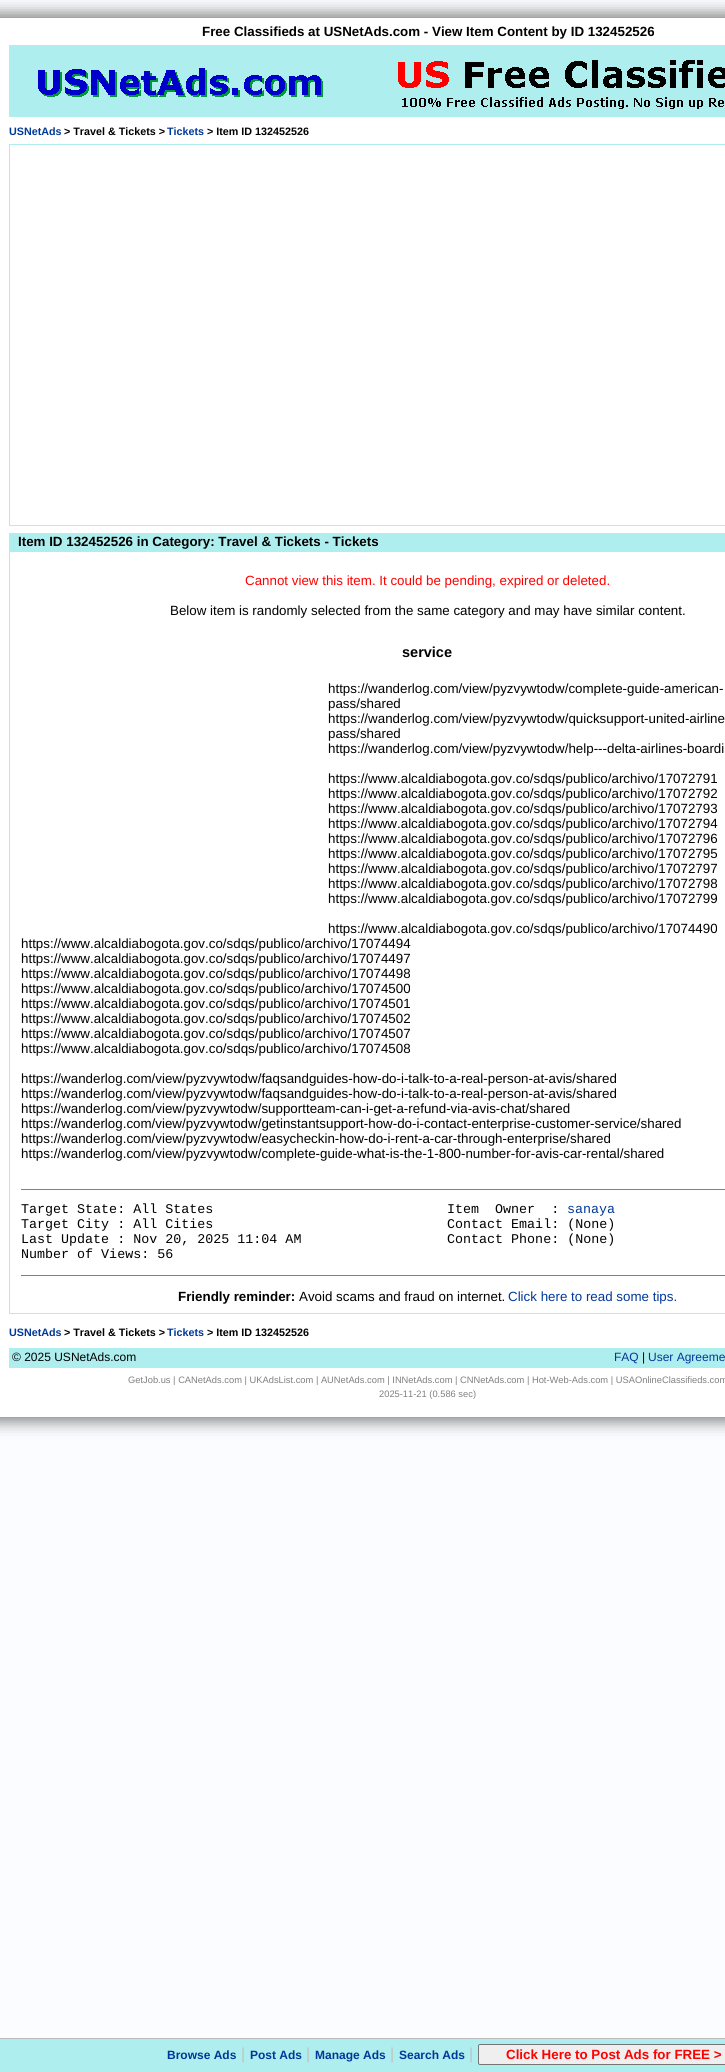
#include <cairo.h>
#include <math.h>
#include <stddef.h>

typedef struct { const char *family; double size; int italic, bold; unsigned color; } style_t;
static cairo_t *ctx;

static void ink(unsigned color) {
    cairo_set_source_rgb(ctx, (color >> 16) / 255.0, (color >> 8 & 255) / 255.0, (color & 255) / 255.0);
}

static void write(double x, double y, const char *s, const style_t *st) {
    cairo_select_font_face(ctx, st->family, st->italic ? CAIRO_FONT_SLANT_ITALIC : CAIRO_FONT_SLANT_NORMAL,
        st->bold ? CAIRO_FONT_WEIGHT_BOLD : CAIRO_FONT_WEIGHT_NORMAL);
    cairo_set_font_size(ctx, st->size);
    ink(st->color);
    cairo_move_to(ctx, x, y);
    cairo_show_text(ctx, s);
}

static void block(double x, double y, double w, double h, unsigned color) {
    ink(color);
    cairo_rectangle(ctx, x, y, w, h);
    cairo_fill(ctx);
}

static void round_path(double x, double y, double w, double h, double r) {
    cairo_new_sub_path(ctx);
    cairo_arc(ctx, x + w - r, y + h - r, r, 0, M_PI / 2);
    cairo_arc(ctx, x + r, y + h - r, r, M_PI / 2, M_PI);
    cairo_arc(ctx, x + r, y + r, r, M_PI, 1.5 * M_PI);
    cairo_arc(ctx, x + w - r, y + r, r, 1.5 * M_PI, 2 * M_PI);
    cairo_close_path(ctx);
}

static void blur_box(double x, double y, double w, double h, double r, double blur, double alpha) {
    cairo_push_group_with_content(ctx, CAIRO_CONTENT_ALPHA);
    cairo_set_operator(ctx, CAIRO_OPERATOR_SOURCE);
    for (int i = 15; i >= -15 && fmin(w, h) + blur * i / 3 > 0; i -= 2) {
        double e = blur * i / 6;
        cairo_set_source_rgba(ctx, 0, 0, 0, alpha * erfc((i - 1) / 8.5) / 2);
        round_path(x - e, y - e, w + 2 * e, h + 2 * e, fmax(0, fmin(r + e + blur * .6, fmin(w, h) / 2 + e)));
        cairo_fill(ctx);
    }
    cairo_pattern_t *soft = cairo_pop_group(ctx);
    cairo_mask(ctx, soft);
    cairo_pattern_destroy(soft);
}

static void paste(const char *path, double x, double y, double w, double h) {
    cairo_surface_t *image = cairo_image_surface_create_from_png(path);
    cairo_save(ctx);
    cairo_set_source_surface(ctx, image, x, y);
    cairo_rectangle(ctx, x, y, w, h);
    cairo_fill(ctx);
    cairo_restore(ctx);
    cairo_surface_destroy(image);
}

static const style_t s1 = {"Liberation Sans", 13.35, 0, 1, 0x000000};
static const style_t s2 = {"Liberation Sans", 10.75, 0, 1, 0x003899};
static const style_t s3 = {"Liberation Sans", 10.75, 0, 1, 0x000000};
static const style_t s4 = {"Liberation Sans", 13.35, 0, 0, 0xff0000};
static const style_t s5 = {"Liberation Sans", 13.35, 0, 0, 0x000000};
static const style_t s6 = {"Liberation Sans", 14.5, 0, 1, 0x000000};
static const style_t s7 = {"Liberation Mono", 13.35, 0, 0, 0x000000};
static const style_t s8 = {"Liberation Mono", 13.35, 0, 0, 0x003899};
static const style_t s9 = {"Liberation Sans", 13.35, 0, 0, 0x003899};
static const style_t s10 = {"Liberation Sans", 12, 0, 0, 0x000000};
static const style_t s11 = {"Liberation Sans", 12, 0, 0, 0x003899};
static const style_t s12 = {"Liberation Sans", 9.33, 0, 0, 0x808080};
static const style_t s13 = {"Liberation Sans", 12, 0, 1, 0x003899};
static const style_t s14 = {"Liberation Sans", 16, 0, 0, 0xc0c0c0};
static const style_t s15 = {"Liberation Sans", 13.35, 0, 1, 0xff0000};

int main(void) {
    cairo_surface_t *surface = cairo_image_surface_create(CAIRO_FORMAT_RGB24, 725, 2072);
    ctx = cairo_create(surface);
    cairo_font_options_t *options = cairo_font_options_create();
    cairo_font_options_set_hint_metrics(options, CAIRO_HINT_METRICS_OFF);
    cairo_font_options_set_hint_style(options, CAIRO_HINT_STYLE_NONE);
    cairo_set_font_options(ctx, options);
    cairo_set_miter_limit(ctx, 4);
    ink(0xfafcff);
    cairo_paint(ctx);
    ink(0x888888);
    blur_box(-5, 13, 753, 1409, 0, 7.5, 1);
    block(0, 18, 725, 1399, 0xffffff);
    write(202, 36, "Free Classifieds at USNetAds.com - View Item Content by ID 132452526", &s1);
    block(9, 45, 716, 72, 0xafeeee);
    paste("pic1.png", 38, 60, 687, 49);
    write(9, 135, "USNetAds", &s2);
    write(64, 135, "> Travel & Tickets >", &s3);
    write(167, 135, "Tickets", &s2);
    write(207, 135, "> Item ID 132452526", &s3);
    block(9, 144, 716, 382, 0xafeeee);
    block(10, 145, 715, 380, 0xffffff);
    block(9, 533, 716, 781, 0xafeeee);
    write(18, 546, "Item ID 132452526 in Category: Travel & Tickets - Tickets", &s1);
    block(10, 552, 715, 761, 0xffffff);
    write(245, 585, "Cannot view this item. It could be pending, expired or deleted.", &s4);
    write(170, 615, "Below item is randomly selected from the same category and may have similar content.", &s5);
    write(402, 657, "service", &s6);
    write(328, 693, "https://wanderlog.com/view/pyzvywtodw/complete-guide-american-", &s5);
    write(328, 708, "pass/shared", &s5);
    write(328, 723, "https://wanderlog.com/view/pyzvywtodw/quicksupport-united-airline", &s5);
    write(328, 738, "pass/shared", &s5);
    write(328, 753, "https://wanderlog.com/view/pyzvywtodw/help---delta-airlines-boardi", &s5);
    write(328, 783, "https://www.alcaldiabogota.gov.co/sdqs/publico/archivo/17072791", &s5);
    write(328, 798, "https://www.alcaldiabogota.gov.co/sdqs/publico/archivo/17072792", &s5);
    write(328, 813, "https://www.alcaldiabogota.gov.co/sdqs/publico/archivo/17072793", &s5);
    write(328, 828, "https://www.alcaldiabogota.gov.co/sdqs/publico/archivo/17072794", &s5);
    write(328, 843, "https://www.alcaldiabogota.gov.co/sdqs/publico/archivo/17072796", &s5);
    write(328, 858, "https://www.alcaldiabogota.gov.co/sdqs/publico/archivo/17072795", &s5);
    write(328, 873, "https://www.alcaldiabogota.gov.co/sdqs/publico/archivo/17072797", &s5);
    write(328, 888, "https://www.alcaldiabogota.gov.co/sdqs/publico/archivo/17072798", &s5);
    write(328, 903, "https://www.alcaldiabogota.gov.co/sdqs/publico/archivo/17072799", &s5);
    write(328, 933, "https://www.alcaldiabogota.gov.co/sdqs/publico/archivo/17074490", &s5);
    write(21, 948, "https://www.alcaldiabogota.gov.co/sdqs/publico/archivo/17074494", &s5);
    write(21, 963, "https://www.alcaldiabogota.gov.co/sdqs/publico/archivo/17074497", &s5);
    write(21, 978, "https://www.alcaldiabogota.gov.co/sdqs/publico/archivo/17074498", &s5);
    write(21, 993, "https://www.alcaldiabogota.gov.co/sdqs/publico/archivo/17074500", &s5);
    write(21, 1008, "https://www.alcaldiabogota.gov.co/sdqs/publico/archivo/17074501", &s5);
    write(21, 1023, "https://www.alcaldiabogota.gov.co/sdqs/publico/archivo/17074502", &s5);
    write(21, 1038, "https://www.alcaldiabogota.gov.co/sdqs/publico/archivo/17074507", &s5);
    write(21, 1053, "https://www.alcaldiabogota.gov.co/sdqs/publico/archivo/17074508", &s5);
    write(21, 1083, "https://wanderlog.com/view/pyzvywtodw/faqsandguides-how-do-i-talk-to-a-real-person-at-avis/shared", &s5);
    write(21, 1098, "https://wanderlog.com/view/pyzvywtodw/faqsandguides-how-do-i-talk-to-a-real-person-at-avis/shared", &s5);
    write(21, 1113, "https://wanderlog.com/view/pyzvywtodw/supportteam-can-i-get-a-refund-via-avis-chat/shared", &s5);
    write(21, 1128, "https://wanderlog.com/view/pyzvywtodw/getinstantsupport-how-do-i-contact-enterprise-customer-service/shared", &s5);
    write(21, 1143, "https://wanderlog.com/view/pyzvywtodw/easycheckin-how-do-i-rent-a-car-through-enterprise/shared", &s5);
    write(21, 1158, "https://wanderlog.com/view/pyzvywtodw/complete-guide-what-is-the-1-800-number-for-avis-car-rental/shared", &s5);
    block(21, 1189, 704, 1, 0x808080);
    write(21, 1213, "Target State: All States", &s7);
    write(21, 1228, "Target City : All Cities", &s7);
    write(21, 1243, "Last Update : Nov 20, 2025 11:04 AM", &s7);
    write(21, 1258, "Number of Views: 56", &s7);
    write(447, 1213, "Item  Owner  :", &s7);
    write(567, 1213, "sanaya", &s8);
    write(447, 1228, "Contact Email: (None)", &s7);
    write(447, 1243, "Contact Phone: (None)", &s7);
    block(21, 1275, 704, 1, 0x808080);
    write(178, 1301, "Friendly reminder:", &s1);
    write(299, 1301, "Avoid scams and fraud on internet.", &s5);
    write(508, 1301, "Click here to read some tips.", &s9);
    write(9, 1336, "USNetAds", &s2);
    write(64, 1336, "> Travel & Tickets >", &s3);
    write(167, 1336, "Tickets", &s2);
    write(207, 1336, "> Item ID 132452526", &s3);
    block(9, 1348, 716, 20, 0xafeeee);
    write(12, 1361, "© 2025 USNetAds.com", &s10);
    write(614, 1361, "FAQ", &s11);
    write(642, 1361, "|", &s10);
    write(648, 1361, "User Agreeme", &s11);
    write(128, 1383, "GetJob.us | CANetAds.com | UKAdsList.com | AUNetAds.com | INNetAds.com | CNNetAds.com | Hot-Web-Ads.com | USAOnlineClassifieds.com", &s12);
    write(379, 1397, "2025-11-21 (0.586 sec)", &s12);
    block(0, 2039, 725, 33, 0xafeeee);
    block(0, 2038, 725, 1, 0xbbbbbb);
    write(167, 2059, "Browse Ads", &s13);
    write(241, 2059, "|", &s14);
    write(250, 2059, "Post Ads", &s13);
    write(306, 2059, "|", &s14);
    write(315, 2059, "Manage Ads", &s13);
    write(390, 2059, "|", &s14);
    write(399, 2059, "Search Ads", &s13);
    write(469, 2059, "|", &s14);
    ink(0xefefef);
    round_path(478.5, 2044.5, 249, 20, 1.5);
    cairo_fill_preserve(ctx);
    ink(0x767676);
    cairo_set_line_width(ctx, 1);
    cairo_stroke(ctx);
    write(506, 2059, "Click Here to Post Ads for FREE >", &s15);
    cairo_surface_write_to_png(surface, "screenshot.png");
    cairo_font_options_destroy(options);
    cairo_destroy(ctx);
    cairo_surface_destroy(surface);
    return 0;
}
